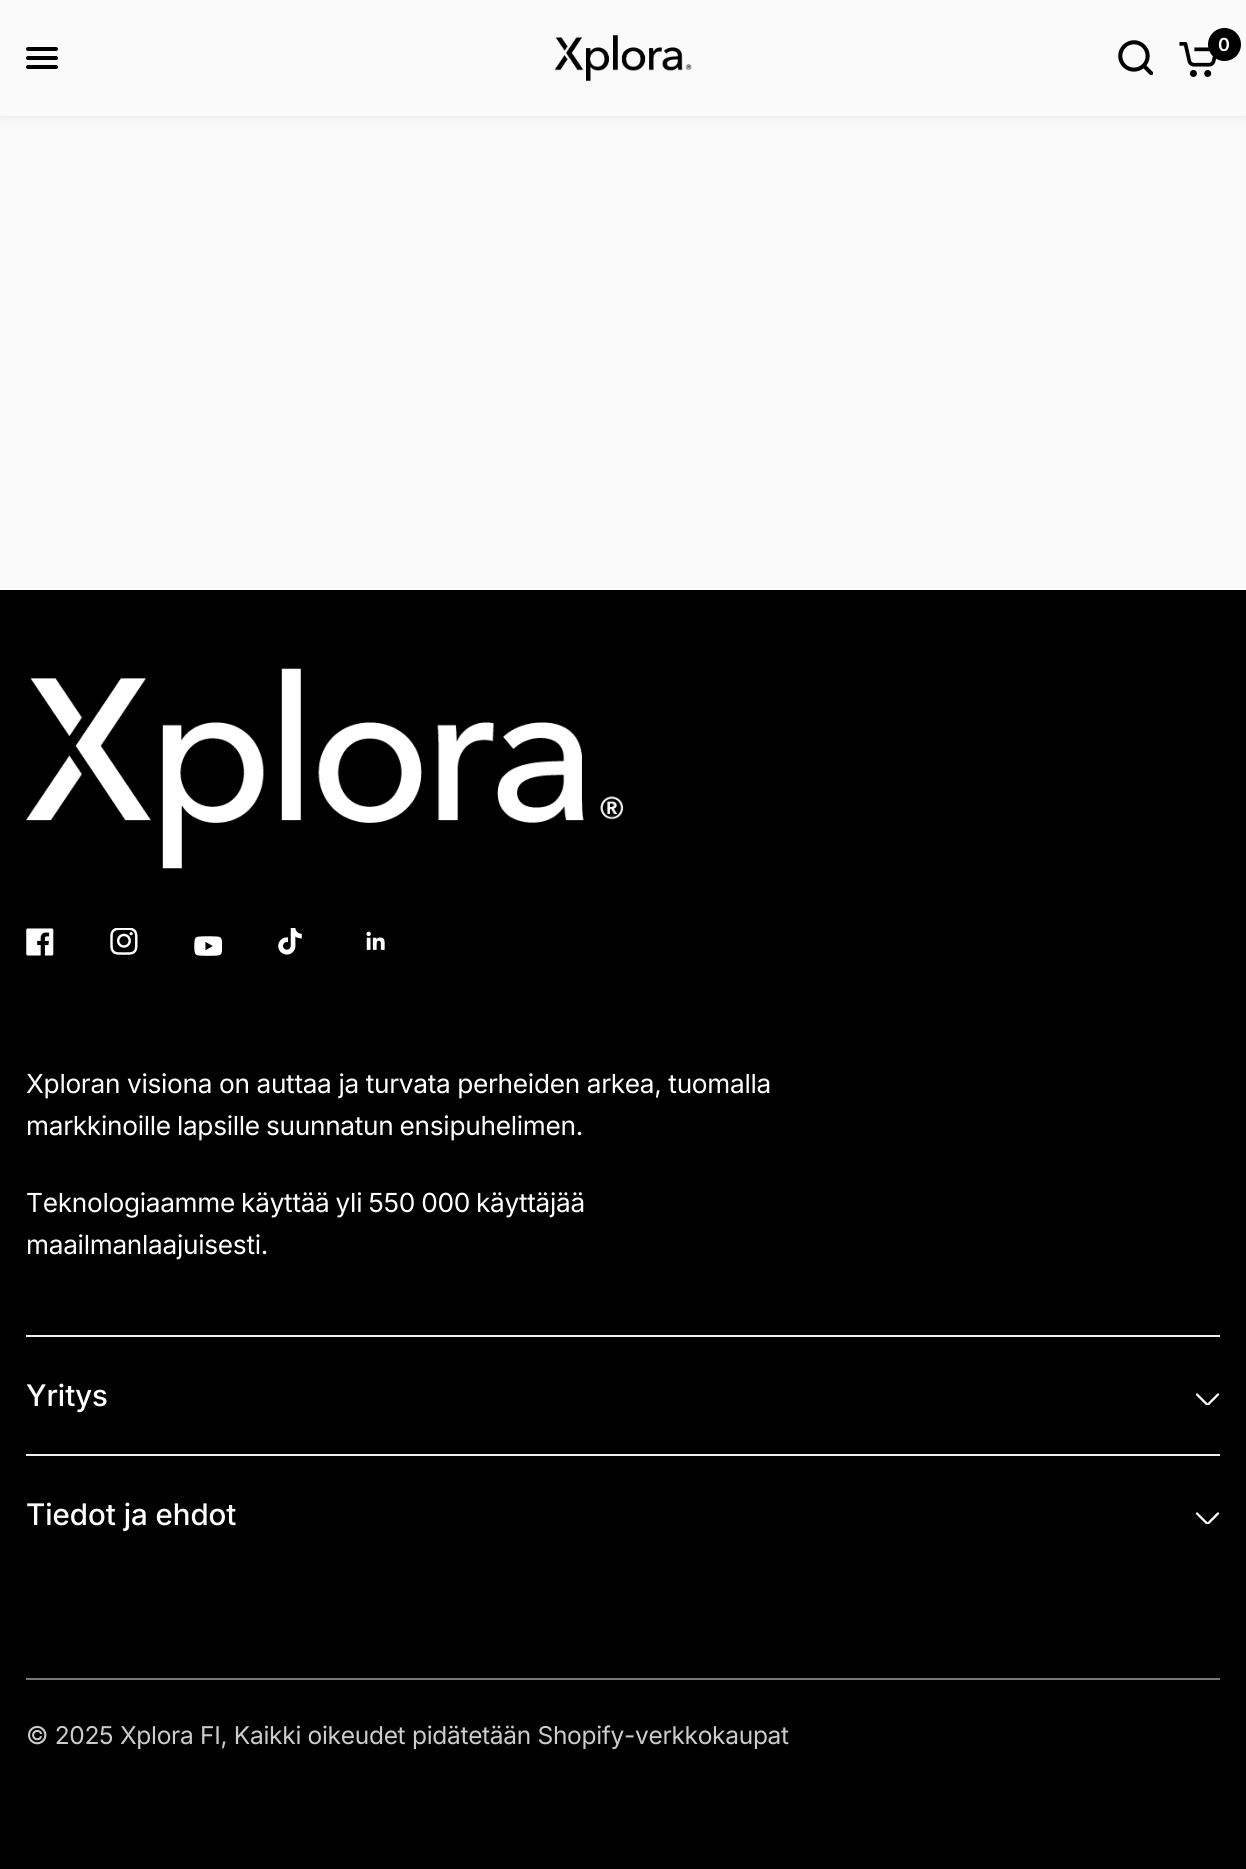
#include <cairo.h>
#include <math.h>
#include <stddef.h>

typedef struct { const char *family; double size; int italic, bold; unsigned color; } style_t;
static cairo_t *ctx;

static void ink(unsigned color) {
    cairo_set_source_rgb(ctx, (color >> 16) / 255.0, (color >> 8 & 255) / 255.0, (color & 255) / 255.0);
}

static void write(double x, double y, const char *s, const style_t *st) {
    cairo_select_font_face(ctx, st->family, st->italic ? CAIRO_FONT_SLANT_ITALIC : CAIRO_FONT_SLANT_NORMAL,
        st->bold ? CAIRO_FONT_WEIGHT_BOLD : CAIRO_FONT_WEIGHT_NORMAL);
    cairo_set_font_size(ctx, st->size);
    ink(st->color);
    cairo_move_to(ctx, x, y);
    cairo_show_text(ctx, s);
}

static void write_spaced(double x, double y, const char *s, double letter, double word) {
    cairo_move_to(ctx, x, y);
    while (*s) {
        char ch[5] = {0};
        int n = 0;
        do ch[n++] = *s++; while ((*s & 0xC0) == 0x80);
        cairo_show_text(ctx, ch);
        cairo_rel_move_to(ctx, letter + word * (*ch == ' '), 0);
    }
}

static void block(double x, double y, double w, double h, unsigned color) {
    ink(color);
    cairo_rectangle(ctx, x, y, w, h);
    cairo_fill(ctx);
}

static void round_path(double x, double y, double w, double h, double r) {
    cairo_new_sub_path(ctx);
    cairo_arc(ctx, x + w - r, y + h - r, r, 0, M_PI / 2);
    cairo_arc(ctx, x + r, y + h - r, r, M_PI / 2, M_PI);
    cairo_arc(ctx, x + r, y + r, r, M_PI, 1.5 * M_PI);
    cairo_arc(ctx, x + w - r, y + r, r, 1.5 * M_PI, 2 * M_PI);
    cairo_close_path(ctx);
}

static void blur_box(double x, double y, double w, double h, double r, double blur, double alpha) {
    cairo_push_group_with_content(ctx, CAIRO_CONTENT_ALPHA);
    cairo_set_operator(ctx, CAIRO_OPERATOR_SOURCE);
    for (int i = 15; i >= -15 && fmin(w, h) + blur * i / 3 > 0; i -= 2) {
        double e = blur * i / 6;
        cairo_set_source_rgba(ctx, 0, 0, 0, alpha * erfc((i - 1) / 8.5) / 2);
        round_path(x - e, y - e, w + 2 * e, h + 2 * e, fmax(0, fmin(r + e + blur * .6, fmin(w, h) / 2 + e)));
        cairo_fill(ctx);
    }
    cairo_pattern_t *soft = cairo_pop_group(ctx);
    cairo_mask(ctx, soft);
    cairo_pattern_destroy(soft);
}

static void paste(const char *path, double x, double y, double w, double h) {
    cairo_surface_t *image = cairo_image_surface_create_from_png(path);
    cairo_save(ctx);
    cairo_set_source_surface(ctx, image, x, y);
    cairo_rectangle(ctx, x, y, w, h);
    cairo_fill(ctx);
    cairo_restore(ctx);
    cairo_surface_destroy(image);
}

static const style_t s1 = {"Inter Medium", 29.75, 0, 0, 0xffffff};

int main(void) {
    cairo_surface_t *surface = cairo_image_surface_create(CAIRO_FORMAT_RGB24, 1246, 1869);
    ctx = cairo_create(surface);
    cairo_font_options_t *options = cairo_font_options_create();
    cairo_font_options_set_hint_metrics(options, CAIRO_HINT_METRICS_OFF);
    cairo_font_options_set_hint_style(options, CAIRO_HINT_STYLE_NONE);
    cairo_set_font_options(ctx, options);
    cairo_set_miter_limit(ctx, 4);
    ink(0xfafafa);
    cairo_paint(ctx);
    cairo_save(ctx);
    cairo_set_fill_rule(ctx, CAIRO_FILL_RULE_EVEN_ODD);
    cairo_new_path(ctx);
    cairo_move_to(ctx, 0, 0);
    cairo_line_to(ctx, 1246, 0);
    cairo_line_to(ctx, 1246, 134);
    cairo_line_to(ctx, 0, 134);
    cairo_close_path(ctx);
    cairo_move_to(ctx, 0, 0);
    cairo_line_to(ctx, 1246, 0);
    cairo_line_to(ctx, 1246, 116);
    cairo_line_to(ctx, 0, 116);
    cairo_close_path(ctx);
    cairo_clip(ctx);
    ink(0x000000);
    blur_box(0, 4, 1246, 115, 0, 4.5, 0.06);
    cairo_restore(ctx);
    paste("pic1.png", 554, 35, 138, 46);
    paste("pic2.png", 1118, 40, 35, 35);
    paste("pic3.png", 1179, 42, 38, 35);
    ink(0x000000);
    cairo_arc(ctx, 1224.5, 44.5, 16.5, 0, 2 * M_PI);
    cairo_fill(ctx);
    cairo_select_font_face(ctx, "Inter SemiBold", CAIRO_FONT_SLANT_NORMAL, CAIRO_FONT_WEIGHT_NORMAL);
    cairo_set_font_size(ctx, 18);
    ink(0xffffff);
    write_spaced(1218, 51, "0", -0.3, 0);
    ink(0x000000);
    round_path(26, 47, 32, 4, 2);
    cairo_fill(ctx);
    round_path(26, 56, 32, 4, 2);
    cairo_fill(ctx);
    round_path(26, 65, 32, 4, 2);
    cairo_fill(ctx);
    block(0, 590, 1246, 1279, 0x000000);
    paste("pic4.png", 26, 668, 597, 201);
    paste("pic5.png", 26, 928, 28, 28);
    paste("pic6.png", 110, 928, 28, 27);
    paste("pic7.png", 194, 936, 28, 20);
    paste("pic8.png", 278, 928, 24, 27);
    paste("pic9.png", 366, 931, 19, 19);
    cairo_select_font_face(ctx, "Inter", CAIRO_FONT_SLANT_NORMAL, CAIRO_FONT_WEIGHT_NORMAL);
    cairo_set_font_size(ctx, 26.25);
    ink(0xffffff);
    write_spaced(26, 1093, "Xploran visiona on auttaa ja turvata perheiden arkea, tuomalla", -0.3, -0.25);
    write_spaced(26, 1135, "markkinoille lapsille suunnatun ensipuhelimen.", -0.3, -1);
    write_spaced(26, 1212, "Teknologiaamme käyttää yli 550 000 käyttäjää", -0.3, -1);
    write_spaced(26, 1254, "maailmanlaajuisesti.", -0.3, 0);
    block(26, 1335, 1194, 2, 0xeeeeee);
    write(26, 1406, "Yritys", &s1);
    cairo_save(ctx);
    cairo_rectangle(ctx, 1195, 1391, 25, 14);
    cairo_clip(ctx);
    cairo_new_path(ctx);
    cairo_move_to(ctx, 1218, 1394.5);
    cairo_line_to(ctx, 1207.5, 1405);
    cairo_line_to(ctx, 1197, 1394.5);
    cairo_set_line_width(ctx, 2.3);
    cairo_set_line_cap(ctx, CAIRO_LINE_CAP_ROUND);
    cairo_set_line_join(ctx, CAIRO_LINE_JOIN_ROUND);
    cairo_stroke(ctx);
    cairo_restore(ctx);
    block(26, 1454, 1194, 2, 0xeeeeee);
    write(26, 1525, "Tiedot ja ehdot", &s1);
    cairo_save(ctx);
    cairo_rectangle(ctx, 1195, 1510, 25, 14);
    cairo_clip(ctx);
    cairo_new_path(ctx);
    cairo_move_to(ctx, 1218, 1513.5);
    cairo_line_to(ctx, 1207.5, 1524);
    cairo_line_to(ctx, 1197, 1513.5);
    cairo_set_line_width(ctx, 2.3);
    cairo_set_line_cap(ctx, CAIRO_LINE_CAP_ROUND);
    cairo_set_line_join(ctx, CAIRO_LINE_JOIN_ROUND);
    cairo_stroke(ctx);
    cairo_restore(ctx);
    block(26, 1678, 1194, 2, 0x777777);
    cairo_select_font_face(ctx, "Inter", CAIRO_FONT_SLANT_NORMAL, CAIRO_FONT_WEIGHT_NORMAL);
    cairo_set_font_size(ctx, 24.5);
    ink(0xcccccc);
    write_spaced(26, 1744, "© 2025 Xplora FI, Kaikki oikeudet pidätetään Shopify-verkkokaupat", -0.3, 0);
    cairo_surface_write_to_png(surface, "screenshot.png");
    cairo_font_options_destroy(options);
    cairo_destroy(ctx);
    cairo_surface_destroy(surface);
    return 0;
}
